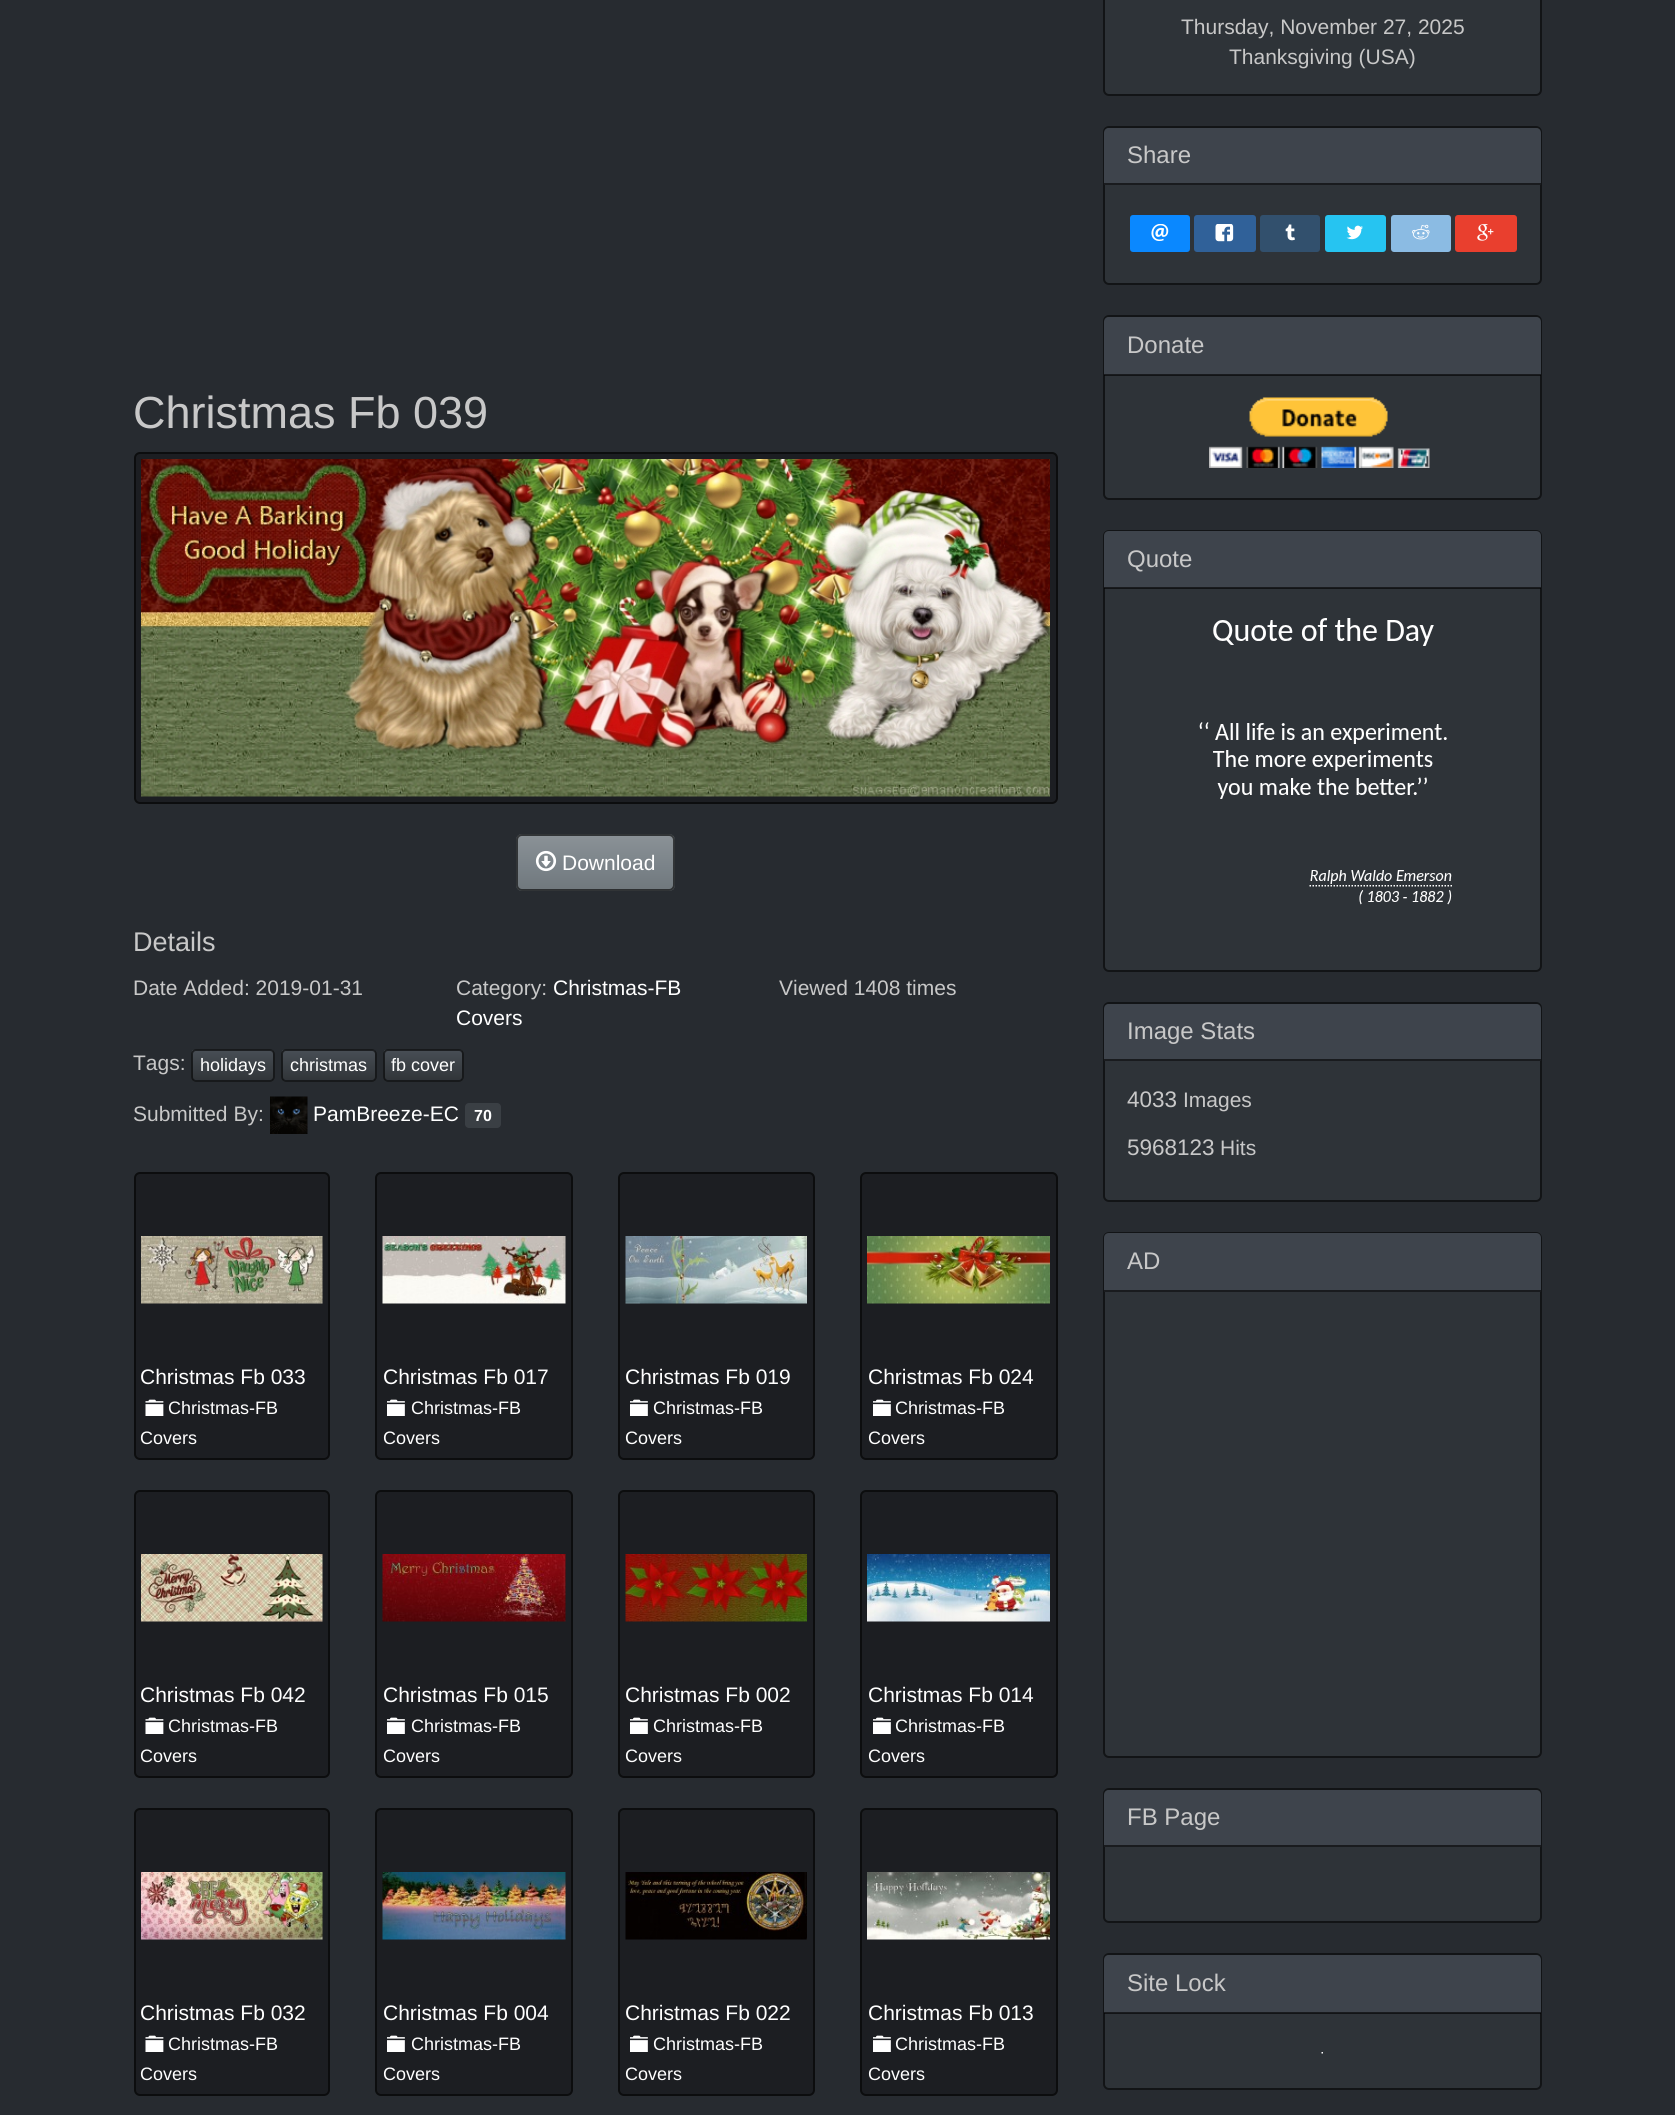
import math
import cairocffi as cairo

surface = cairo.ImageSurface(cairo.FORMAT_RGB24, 1675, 2115)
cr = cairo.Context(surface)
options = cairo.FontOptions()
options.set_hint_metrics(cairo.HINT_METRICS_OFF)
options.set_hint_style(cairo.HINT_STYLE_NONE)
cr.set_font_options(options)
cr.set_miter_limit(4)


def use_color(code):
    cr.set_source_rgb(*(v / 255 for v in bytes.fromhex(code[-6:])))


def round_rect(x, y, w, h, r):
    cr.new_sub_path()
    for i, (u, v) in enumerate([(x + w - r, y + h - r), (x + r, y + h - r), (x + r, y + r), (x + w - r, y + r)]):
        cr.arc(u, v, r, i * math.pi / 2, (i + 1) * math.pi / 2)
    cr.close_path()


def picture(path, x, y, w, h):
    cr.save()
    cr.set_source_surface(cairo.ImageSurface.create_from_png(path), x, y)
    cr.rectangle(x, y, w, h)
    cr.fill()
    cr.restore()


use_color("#272b30")
cr.paint()
cr.select_font_face("Liberation Sans")
cr.set_font_size(45)
use_color("#c8c8c8")
cr.move_to(133, 428)
cr.show_text("Christmas Fb 039")
use_color("#1c1e22")
round_rect(135, 453, 922, 350, 5)
cr.fill_preserve()
use_color("#0c0d0e")
cr.stroke()
picture("img1.png", 141, 459, 909, 338)
use_color("#7a8288")
round_rect(516, 834, 159, 57, 6)
cr.fill()
cr.save()
round_rect(516, 834, 159, 57, 6)
cr.clip()
gradient = cairo.LinearGradient(596, 836, 596, 890)
gradient.add_color_stop_rgba(0, 0.541, 0.569, 0.588, 1)
gradient.add_color_stop_rgba(0.6, 0.478, 0.51, 0.533, 1)
gradient.add_color_stop_rgba(1, 0.439, 0.471, 0.49, 1)
cr.set_source(gradient)
cr.rectangle(518, 836, 156, 54)
cr.fill()
cr.restore()
round_rect(517, 835, 157, 55, 5)
cr.set_source_rgba(0, 0, 0, 0.6)
cr.stroke()
picture("img2.png", 535, 850, 22, 22)
cr.set_font_size(21)
use_color("#ffffff")
cr.move_to(562, 870)
cr.show_text("Download")
cr.set_font_size(27)
use_color("#c8c8c8")
cr.move_to(133, 951)
cr.show_text("Details")
cr.set_font_size(21)
cr.move_to(133, 995)
cr.show_text("Date Added: 2019-01-31")
cr.move_to(456, 995)
cr.show_text("Category:")
use_color("#ffffff")
cr.move_to(553, 995)
cr.show_text("Christmas-FB")
cr.move_to(456, 1025)
cr.show_text("Covers")
use_color("#c8c8c8")
cr.move_to(779, 995)
cr.show_text("Viewed 1408 times")
cr.move_to(133, 1070)
cr.show_text("Tags:")
use_color("#3a3f44")
round_rect(191, 1049, 84, 33, 5)
cr.fill()
gradient = cairo.LinearGradient(233, 1050, 233, 1080)
gradient.add_color_stop_rgba(0, 0.282, 0.306, 0.333, 1)
gradient.add_color_stop_rgba(0.6, 0.227, 0.247, 0.267, 1)
gradient.add_color_stop_rgba(1, 0.192, 0.208, 0.224, 1)
cr.set_source(gradient)
cr.rectangle(192, 1050, 81, 30)
cr.fill()
round_rect(192, 1050, 82, 31, 4)
cr.set_source_rgba(0, 0, 0, 0.6)
cr.stroke()
cr.set_font_size(18)
use_color("#ffffff")
cr.move_to(200, 1071)
cr.show_text("holidays")
use_color("#3a3f44")
round_rect(281, 1049, 96, 33, 5)
cr.fill()
gradient = cairo.LinearGradient(329, 1050, 329, 1080)
gradient.add_color_stop_rgba(0, 0.282, 0.306, 0.333, 1)
gradient.add_color_stop_rgba(0.6, 0.227, 0.247, 0.267, 1)
gradient.add_color_stop_rgba(1, 0.192, 0.208, 0.224, 1)
cr.set_source(gradient)
cr.rectangle(282, 1050, 93, 30)
cr.fill()
round_rect(282, 1050, 94, 31, 4)
cr.set_source_rgba(0, 0, 0, 0.6)
cr.stroke()
use_color("#ffffff")
cr.move_to(290, 1071)
cr.show_text("christmas")
use_color("#3a3f44")
round_rect(383, 1049, 81, 33, 5)
cr.fill()
gradient = cairo.LinearGradient(423, 1050, 423, 1080)
gradient.add_color_stop_rgba(0, 0.282, 0.306, 0.333, 1)
gradient.add_color_stop_rgba(0.6, 0.227, 0.247, 0.267, 1)
gradient.add_color_stop_rgba(1, 0.192, 0.208, 0.224, 1)
cr.set_source(gradient)
cr.rectangle(384, 1050, 78, 30)
cr.fill()
round_rect(384, 1050, 79, 31, 4)
cr.set_source_rgba(0, 0, 0, 0.6)
cr.stroke()
use_color("#ffffff")
cr.move_to(391, 1071)
cr.show_text("fb cover")
cr.set_font_size(21)
use_color("#c8c8c8")
cr.move_to(133, 1121)
cr.show_text("Submitted By:")
picture("img3.png", 270, 1096, 38, 38)
use_color("#ffffff")
cr.move_to(313, 1121)
cr.show_text("PamBreeze-EC")
use_color("#3a3f44")
round_rect(465, 1103, 36, 25, 4)
cr.fill()
cr.select_font_face("Liberation Sans", cairo.FONT_SLANT_NORMAL, cairo.FONT_WEIGHT_BOLD)
cr.set_font_size(16)
use_color("#ffffff")
cr.move_to(474, 1121)
cr.show_text("70")
use_color("#1c1e22")
round_rect(135, 1173, 194, 286, 5)
cr.fill_preserve()
use_color("#0c0d0e")
cr.stroke()
picture("img4.png", 141, 1236, 182, 68)
cr.select_font_face("Liberation Sans")
cr.set_font_size(21)
use_color("#ffffff")
cr.move_to(140, 1384)
cr.show_text("Christmas Fb 033")
picture("img5.png", 145, 1399, 19, 17)
cr.set_font_size(18)
cr.move_to(168, 1414)
cr.show_text("Christmas-FB")
cr.move_to(140, 1444)
cr.show_text("Covers")
use_color("#1c1e22")
round_rect(376, 1173, 196, 286, 5)
cr.fill_preserve()
use_color("#0c0d0e")
cr.stroke()
picture("img6.png", 382, 1236, 184, 68)
cr.set_font_size(21)
use_color("#ffffff")
cr.move_to(383, 1384)
cr.show_text("Christmas Fb 017")
picture("img7.png", 387, 1399, 18, 17)
cr.set_font_size(18)
cr.move_to(411, 1414)
cr.show_text("Christmas-FB")
cr.move_to(383, 1444)
cr.show_text("Covers")
use_color("#1c1e22")
round_rect(619, 1173, 195, 286, 5)
cr.fill_preserve()
use_color("#0c0d0e")
cr.stroke()
picture("img8.png", 625, 1236, 182, 68)
cr.set_font_size(21)
use_color("#ffffff")
cr.move_to(625, 1384)
cr.show_text("Christmas Fb 019")
picture("img7.png", 630, 1399, 18, 17)
cr.set_font_size(18)
cr.move_to(653, 1414)
cr.show_text("Christmas-FB")
cr.move_to(625, 1444)
cr.show_text("Covers")
use_color("#1c1e22")
round_rect(861, 1173, 196, 286, 5)
cr.fill_preserve()
use_color("#0c0d0e")
cr.stroke()
picture("img9.png", 867, 1236, 183, 68)
cr.set_font_size(21)
use_color("#ffffff")
cr.move_to(868, 1384)
cr.show_text("Christmas Fb 024")
picture("img7.png", 873, 1399, 18, 17)
cr.set_font_size(18)
cr.move_to(895, 1414)
cr.show_text("Christmas-FB")
cr.move_to(868, 1444)
cr.show_text("Covers")
use_color("#1c1e22")
round_rect(135, 1491, 194, 286, 5)
cr.fill_preserve()
use_color("#0c0d0e")
cr.stroke()
picture("img10.png", 141, 1554, 182, 68)
cr.set_font_size(21)
use_color("#ffffff")
cr.move_to(140, 1702)
cr.show_text("Christmas Fb 042")
picture("img5.png", 145, 1717, 19, 17)
cr.set_font_size(18)
cr.move_to(168, 1732)
cr.show_text("Christmas-FB")
cr.move_to(140, 1762)
cr.show_text("Covers")
use_color("#1c1e22")
round_rect(376, 1491, 196, 286, 5)
cr.fill_preserve()
use_color("#0c0d0e")
cr.stroke()
picture("img11.png", 382, 1554, 184, 68)
cr.set_font_size(21)
use_color("#ffffff")
cr.move_to(383, 1702)
cr.show_text("Christmas Fb 015")
picture("img7.png", 387, 1717, 18, 17)
cr.set_font_size(18)
cr.move_to(411, 1732)
cr.show_text("Christmas-FB")
cr.move_to(383, 1762)
cr.show_text("Covers")
use_color("#1c1e22")
round_rect(619, 1491, 195, 286, 5)
cr.fill_preserve()
use_color("#0c0d0e")
cr.stroke()
picture("img12.png", 625, 1554, 182, 68)
cr.set_font_size(21)
use_color("#ffffff")
cr.move_to(625, 1702)
cr.show_text("Christmas Fb 002")
picture("img7.png", 630, 1717, 18, 17)
cr.set_font_size(18)
cr.move_to(653, 1732)
cr.show_text("Christmas-FB")
cr.move_to(625, 1762)
cr.show_text("Covers")
use_color("#1c1e22")
round_rect(861, 1491, 196, 286, 5)
cr.fill_preserve()
use_color("#0c0d0e")
cr.stroke()
picture("img13.png", 867, 1554, 183, 68)
cr.set_font_size(21)
use_color("#ffffff")
cr.move_to(868, 1702)
cr.show_text("Christmas Fb 014")
picture("img7.png", 873, 1717, 18, 17)
cr.set_font_size(18)
cr.move_to(895, 1732)
cr.show_text("Christmas-FB")
cr.move_to(868, 1762)
cr.show_text("Covers")
use_color("#1c1e22")
round_rect(135, 1809, 194, 286, 5)
cr.fill_preserve()
use_color("#0c0d0e")
cr.stroke()
picture("img14.png", 141, 1872, 182, 68)
cr.set_font_size(21)
use_color("#ffffff")
cr.move_to(140, 2020)
cr.show_text("Christmas Fb 032")
picture("img5.png", 145, 2035, 19, 17)
cr.set_font_size(18)
cr.move_to(168, 2050)
cr.show_text("Christmas-FB")
cr.move_to(140, 2080)
cr.show_text("Covers")
use_color("#1c1e22")
round_rect(376, 1809, 196, 286, 5)
cr.fill_preserve()
use_color("#0c0d0e")
cr.stroke()
picture("img15.png", 382, 1872, 184, 68)
cr.set_font_size(21)
use_color("#ffffff")
cr.move_to(383, 2020)
cr.show_text("Christmas Fb 004")
picture("img7.png", 387, 2035, 18, 17)
cr.set_font_size(18)
cr.move_to(411, 2050)
cr.show_text("Christmas-FB")
cr.move_to(383, 2080)
cr.show_text("Covers")
use_color("#1c1e22")
round_rect(619, 1809, 195, 286, 5)
cr.fill_preserve()
use_color("#0c0d0e")
cr.stroke()
picture("img16.png", 625, 1872, 182, 68)
cr.set_font_size(21)
use_color("#ffffff")
cr.move_to(625, 2020)
cr.show_text("Christmas Fb 022")
picture("img7.png", 630, 2035, 18, 17)
cr.set_font_size(18)
cr.move_to(653, 2050)
cr.show_text("Christmas-FB")
cr.move_to(625, 2080)
cr.show_text("Covers")
use_color("#1c1e22")
round_rect(861, 1809, 196, 286, 5)
cr.fill_preserve()
use_color("#0c0d0e")
cr.stroke()
picture("img17.png", 867, 1872, 183, 68)
cr.set_font_size(21)
use_color("#ffffff")
cr.move_to(868, 2020)
cr.show_text("Christmas Fb 013")
picture("img7.png", 873, 2035, 18, 17)
cr.set_font_size(18)
cr.move_to(895, 2050)
cr.show_text("Christmas-FB")
cr.move_to(868, 2080)
cr.show_text("Covers")
use_color("#2e3338")
round_rect(1104, -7, 437, 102, 5)
cr.fill_preserve()
use_color("#121416")
cr.stroke()
cr.set_font_size(21)
use_color("#c8c8c8")
cr.move_to(1181, 34)
cr.show_text("Thursday, November 27, 2025")
cr.move_to(1229, 64)
cr.show_text("Thanksgiving (USA)")
use_color("#2e3338")
round_rect(1104, 127, 437, 157, 5)
cr.fill_preserve()
use_color("#121416")
cr.stroke()
use_color("#3e444c")
cr.new_path()
cr.move_to(1109, 128)
cr.line_to(1536, 128)
cr.curve_to(1539, 128, 1541, 130, 1541, 133)
cr.line_to(1541, 185)
cr.line_to(1104, 185)
cr.line_to(1104, 133)
cr.curve_to(1104, 130, 1106, 128, 1109, 128)
cr.close_path()
cr.fill()
use_color("#191b1e")
cr.rectangle(1104, 183, 437, 2)
cr.fill()
cr.set_font_size(24)
use_color("#c8c8c8")
cr.move_to(1127, 163)
cr.show_text("Share")
use_color("#0a88ff")
round_rect(1130, 215, 60, 37, 3)
cr.fill()
picture("img18.png", 1151, 224, 18, 17)
use_color("#306199")
round_rect(1194, 215, 62, 37, 3)
cr.fill()
picture("img19.png", 1215, 224, 19, 18)
use_color("#32506d")
round_rect(1260, 215, 60, 37, 3)
cr.fill()
picture("img20.png", 1285, 224, 10, 17)
use_color("#26c4f1")
round_rect(1325, 215, 61, 37, 3)
cr.fill()
picture("img21.png", 1346, 225, 17, 15)
use_color("#8bbbe3")
round_rect(1391, 215, 60, 37, 3)
cr.fill()
picture("img22.png", 1412, 224, 18, 16)
use_color("#e93f2e")
round_rect(1455, 215, 62, 37, 3)
cr.fill()
picture("img23.png", 1477, 224, 17, 17)
use_color("#2e3338")
round_rect(1104, 316, 437, 183, 5)
cr.fill_preserve()
use_color("#121416")
cr.stroke()
use_color("#3e444c")
cr.new_path()
cr.move_to(1109, 317)
cr.line_to(1536, 317)
cr.curve_to(1539, 317, 1541, 319, 1541, 322)
cr.line_to(1541, 375)
cr.line_to(1104, 375)
cr.line_to(1104, 322)
cr.curve_to(1104, 319, 1106, 317, 1109, 317)
cr.close_path()
cr.fill()
cr.set_source_rgba(0, 0, 0, 0.6)
cr.rectangle(1104, 374, 437, 2)
cr.fill()
use_color("#c8c8c8")
cr.move_to(1127, 353)
cr.show_text("Donate")
picture("img24.png", 1209, 397, 221, 71)
use_color("#2e3338")
round_rect(1104, 531, 437, 440, 5)
cr.fill_preserve()
use_color("#121416")
cr.stroke()
use_color("#3e444c")
cr.new_path()
cr.move_to(1109, 531)
cr.line_to(1536, 531)
cr.curve_to(1539, 531, 1541, 533, 1541, 536)
cr.line_to(1541, 588)
cr.line_to(1104, 588)
cr.line_to(1104, 536)
cr.curve_to(1104, 533, 1106, 531, 1109, 531)
cr.close_path()
cr.fill()
cr.set_source_rgba(0, 0, 0, 0.6)
cr.rectangle(1104, 587, 437, 2)
cr.fill()
use_color("#c8c8c8")
cr.move_to(1127, 567)
cr.show_text("Quote")
picture("img25.png", 1199, 618, 253, 287)
use_color("#2e3338")
round_rect(1104, 1003, 437, 198, 5)
cr.fill_preserve()
use_color("#121416")
cr.stroke()
use_color("#3e444c")
cr.new_path()
cr.move_to(1109, 1004)
cr.line_to(1536, 1004)
cr.curve_to(1539, 1004, 1541, 1006, 1541, 1009)
cr.line_to(1541, 1061)
cr.line_to(1104, 1061)
cr.line_to(1104, 1009)
cr.curve_to(1104, 1006, 1106, 1004, 1109, 1004)
cr.close_path()
cr.fill()
use_color("#191b1e")
cr.rectangle(1104, 1059, 437, 2)
cr.fill()
use_color("#c8c8c8")
cr.move_to(1127, 1039)
cr.show_text("Image Stats")
cr.set_font_size(22.5)
cr.move_to(1127, 1107)
cr.show_text("4033")
cr.set_font_size(21)
cr.move_to(1183, 1107)
cr.show_text("Images")
cr.set_font_size(22.5)
cr.move_to(1127, 1155)
cr.show_text("5968123")
cr.set_font_size(21)
cr.move_to(1220, 1155)
cr.show_text("Hits")
use_color("#2e3338")
round_rect(1104, 1233, 437, 524, 5)
cr.fill_preserve()
use_color("#121416")
cr.stroke()
use_color("#3e444c")
cr.new_path()
cr.move_to(1109, 1233)
cr.line_to(1536, 1233)
cr.curve_to(1539, 1233, 1541, 1235, 1541, 1238)
cr.line_to(1541, 1292)
cr.line_to(1104, 1292)
cr.line_to(1104, 1238)
cr.curve_to(1104, 1235, 1106, 1233, 1109, 1233)
cr.close_path()
cr.fill()
use_color("#191b1e")
cr.rectangle(1104, 1290, 437, 2)
cr.fill()
cr.set_font_size(24)
use_color("#c8c8c8")
cr.move_to(1127, 1269)
cr.show_text("AD")
use_color("#2e3338")
round_rect(1104, 1789, 437, 133, 5)
cr.fill_preserve()
use_color("#121416")
cr.stroke()
use_color("#3e444c")
cr.new_path()
cr.move_to(1109, 1790)
cr.line_to(1536, 1790)
cr.curve_to(1539, 1790, 1541, 1792, 1541, 1795)
cr.line_to(1541, 1847)
cr.line_to(1104, 1847)
cr.line_to(1104, 1795)
cr.curve_to(1104, 1792, 1106, 1790, 1109, 1790)
cr.close_path()
cr.fill()
use_color("#191b1e")
cr.rectangle(1104, 1845, 437, 2)
cr.fill()
use_color("#c8c8c8")
cr.move_to(1127, 1825)
cr.show_text("FB Page")
use_color("#2e3338")
round_rect(1104, 1954, 437, 135, 5)
cr.fill_preserve()
use_color("#121416")
cr.stroke()
use_color("#3e444c")
cr.new_path()
cr.move_to(1109, 1955)
cr.line_to(1536, 1955)
cr.curve_to(1539, 1955, 1541, 1957, 1541, 1960)
cr.line_to(1541, 2013)
cr.line_to(1104, 2013)
cr.line_to(1104, 1960)
cr.curve_to(1104, 1957, 1106, 1955, 1109, 1955)
cr.close_path()
cr.fill()
cr.set_source_rgba(0, 0, 0, 0.6)
cr.rectangle(1104, 2012, 437, 2)
cr.fill()
use_color("#c8c8c8")
cr.move_to(1127, 1991)
cr.show_text("Site Lock")
picture("img26.png", 1321, 2052, 2, 2)
surface.write_to_png("result.png")
